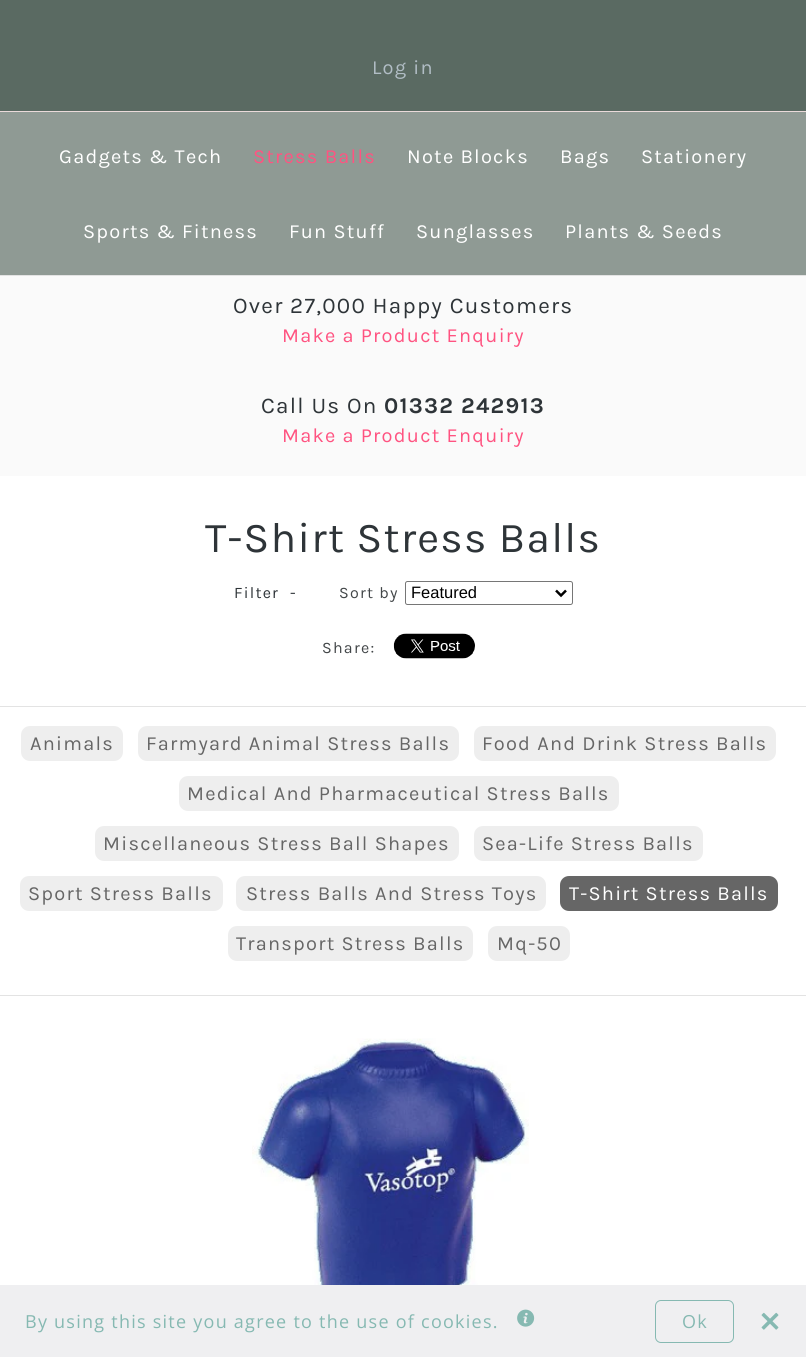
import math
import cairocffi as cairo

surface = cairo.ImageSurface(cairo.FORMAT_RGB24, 806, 1357)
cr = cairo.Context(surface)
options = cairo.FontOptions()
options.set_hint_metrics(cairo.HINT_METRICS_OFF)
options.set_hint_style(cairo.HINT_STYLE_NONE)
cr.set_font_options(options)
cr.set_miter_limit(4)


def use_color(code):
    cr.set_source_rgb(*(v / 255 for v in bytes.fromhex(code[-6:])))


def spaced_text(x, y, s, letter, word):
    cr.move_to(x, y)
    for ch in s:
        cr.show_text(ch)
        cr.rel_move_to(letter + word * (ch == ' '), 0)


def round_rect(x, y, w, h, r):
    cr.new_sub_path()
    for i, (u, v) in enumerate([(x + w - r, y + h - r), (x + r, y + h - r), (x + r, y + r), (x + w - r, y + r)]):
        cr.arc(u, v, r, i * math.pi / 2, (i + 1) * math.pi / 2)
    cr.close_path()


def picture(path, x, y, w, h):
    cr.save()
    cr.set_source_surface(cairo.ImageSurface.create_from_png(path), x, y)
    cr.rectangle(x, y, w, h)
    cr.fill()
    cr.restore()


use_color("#ffffff")
cr.paint()
use_color("#e3e3e3")
cr.rectangle(0, 275, 806, 1)
cr.fill()
use_color("#5a6a62")
cr.rectangle(0, 0, 806, 111)
cr.fill()
cr.select_font_face("Karla")
cr.set_font_size(20)
use_color("#b1bdc5")
spaced_text(372, 74, "Log in", 1.25, 0)
use_color("#8f9a94")
cr.rectangle(0, 112, 806, 163)
cr.fill()
use_color("#eadada")
cr.rectangle(0, 111, 806, 1)
cr.fill()
use_color("#ffffff")
spaced_text(59, 163, "Gadgets & Tech", 1.25, 0)
use_color("#ff5381")
spaced_text(253, 163, "Stress Balls", 1.25, 0)
use_color("#ffffff")
spaced_text(407, 163, "Note Blocks", 1.25, 0)
spaced_text(560, 163, "Bags", 1.25, 0)
spaced_text(641, 163, "Stationery", 1.25, 0)
spaced_text(83, 238, "Sports & Fitness", 1.25, 0)
spaced_text(289, 238, "Fun Stuff", 1.25, 0)
spaced_text(416, 238, "Sunglasses", 1.25, 0)
spaced_text(565, 238, "Plants & Seeds", 1.25, 0)
use_color("#fafafa")
cr.rectangle(0, 276, 806, 200)
cr.fill()
cr.set_font_size(22.5)
use_color("#2e3438")
spaced_text(233, 313, "Over 27,000 Happy Customers", 1.25, 0)
cr.set_font_size(20)
use_color("#ff5381")
spaced_text(282, 342, "Make a Product Enquiry", 1.25, 0)
cr.set_font_size(22.5)
use_color("#2e3438")
spaced_text(261, 413, "Call Us On", 1.25, 0)
cr.select_font_face("Karla", cairo.FONT_SLANT_NORMAL, cairo.FONT_WEIGHT_BOLD)
spaced_text(384, 413, "01332 242913", 1.25, 0)
cr.select_font_face("Karla")
cr.set_font_size(20)
use_color("#ff5381")
spaced_text(282, 442, "Make a Product Enquiry", 1.25, 0)
cr.set_font_size(42.5)
use_color("#2e3438")
spaced_text(205, 552, "T-Shirt Stress Balls", 1.25, 0)
cr.set_font_size(16)
spaced_text(234, 598, "Filter", 1.25, 0)
spaced_text(290, 598, "-", 1.25, 0)
use_color("#424648")
spaced_text(339, 598, "Sort by", 1.25, 0)
round_rect(405.5, 581.5, 167, 23, 2)
use_color("#767676")
cr.set_line_width(1)
cr.stroke()
cr.new_path()
cr.move_to(556, 590.5)
cr.line_to(561, 595.5)
cr.line_to(566, 590.5)
use_color("#000000")
cr.set_line_width(2.5)
cr.stroke()
cr.select_font_face("Liberation Sans")
cr.set_font_size(16.5)
cr.move_to(411, 598)
cr.show_text("Featured")
cr.select_font_face("Karla")
cr.set_font_size(16)
use_color("#424648")
spaced_text(322, 653, "Share:", 1.25, 0)
picture("img1.png", 393, 633, 82, 26)
use_color("#e3e3e3")
cr.rectangle(0, 706, 806, 1)
cr.fill()
cr.rectangle(0, 995, 806, 1)
cr.fill()
use_color("#eeeeee")
round_rect(21, 726, 102, 35, 9)
cr.fill()
cr.set_font_size(20)
use_color("#666666")
spaced_text(30, 750, "Animals", 1.25, 0)
use_color("#eeeeee")
round_rect(138, 726, 321, 35, 9)
cr.fill()
use_color("#666666")
spaced_text(146, 750, "Farmyard Animal Stress Balls", 1.25, 0)
use_color("#eeeeee")
round_rect(474, 726, 302, 35, 9)
cr.fill()
use_color("#666666")
spaced_text(482, 750, "Food And Drink Stress Balls", 1.25, 0)
use_color("#eeeeee")
round_rect(179, 776, 440, 35, 9)
cr.fill()
use_color("#666666")
spaced_text(187, 800, "Medical And Pharmaceutical Stress Balls", 1.25, 0)
use_color("#eeeeee")
round_rect(95, 826, 364, 35, 9)
cr.fill()
use_color("#666666")
spaced_text(103, 850, "Miscellaneous Stress Ball Shapes", 1.25, 0)
use_color("#eeeeee")
round_rect(474, 826, 229, 35, 9)
cr.fill()
use_color("#666666")
spaced_text(482, 850, "Sea-Life Stress Balls", 1.25, 0)
use_color("#eeeeee")
round_rect(20, 876, 203, 35, 9)
cr.fill()
use_color("#666666")
spaced_text(28, 900, "Sport Stress Balls", 1.25, 0)
use_color("#eeeeee")
round_rect(236, 876, 310, 35, 9)
cr.fill()
use_color("#666666")
spaced_text(246, 900, "Stress Balls And Stress Toys", 1.25, 0)
round_rect(560, 876, 218, 35, 9)
cr.fill()
use_color("#ffffff")
spaced_text(569, 900, "T-Shirt Stress Balls", 1.25, 0)
use_color("#eeeeee")
round_rect(228, 926, 245, 35, 9)
cr.fill()
use_color("#666666")
spaced_text(236, 950, "Transport Stress Balls", 1.25, 0)
use_color("#eeeeee")
round_rect(488, 926, 82, 35, 9)
cr.fill()
use_color("#666666")
spaced_text(497, 950, "Mq-50", 1.25, 0)
picture("img2.png", 252, 1038, 277, 247)
use_color("#efeff1")
cr.rectangle(0, 1285, 806, 72)
cr.fill()
cr.select_font_face("Open Sans")
cr.set_font_size(18)
use_color("#86b9b2")
spaced_text(25, 1328, "By using this site you agree to the use of cookies.", 1.25, 0)
picture("img3.png", 517, 1309, 18, 18)
round_rect(655.5, 1300.5, 78, 42, 5.5)
cr.set_line_width(1)
cr.stroke()
spaced_text(682, 1328, "Ok", 1.25, 0)
picture("img4.png", 761, 1312, 18, 18)
surface.write_to_png("result.png")
